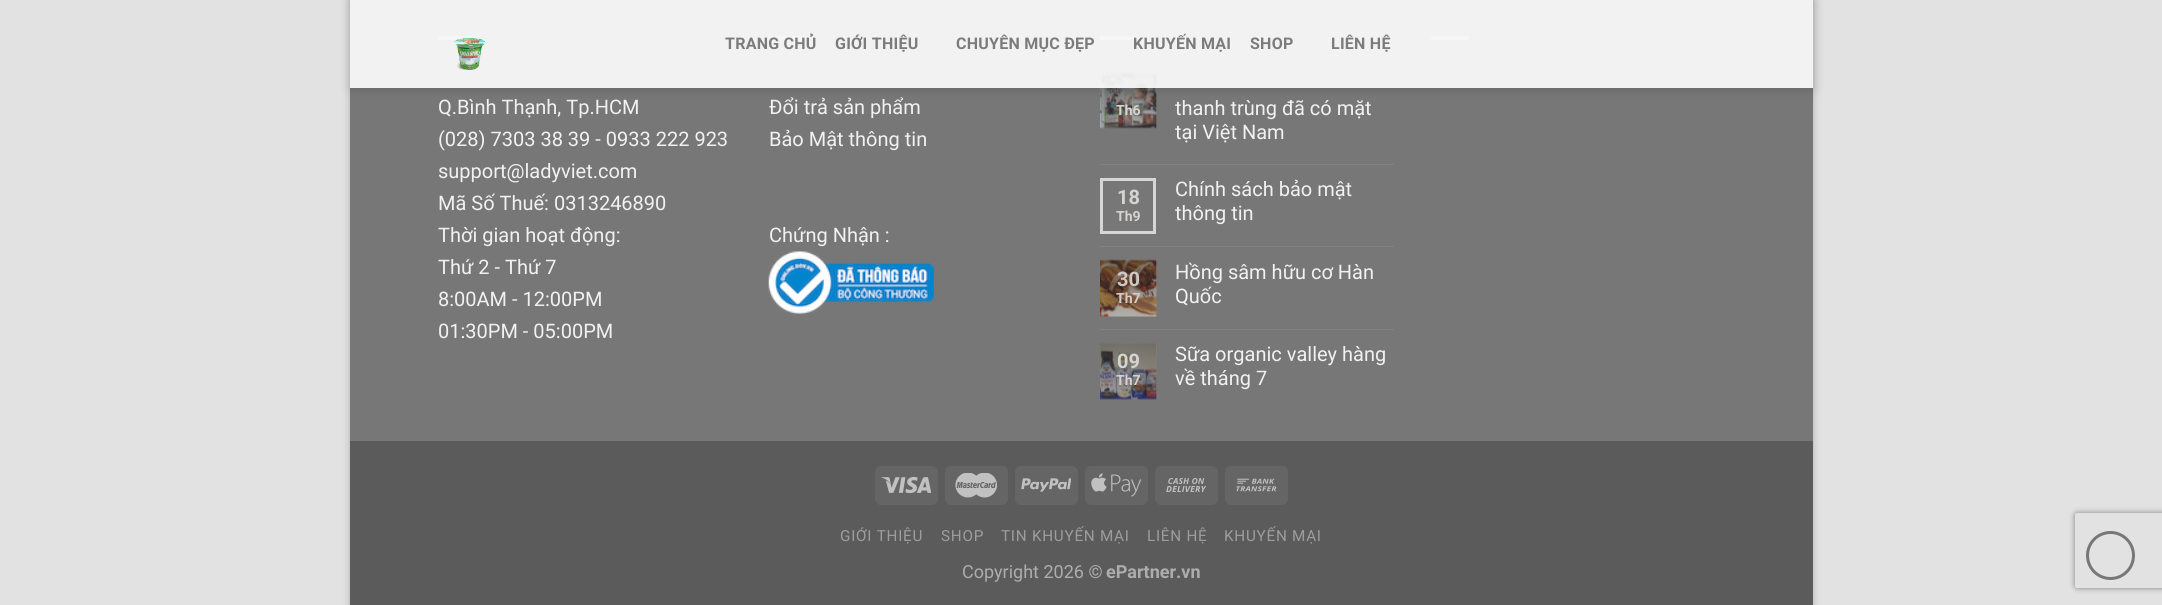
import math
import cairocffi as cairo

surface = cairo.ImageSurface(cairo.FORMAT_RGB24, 2162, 605)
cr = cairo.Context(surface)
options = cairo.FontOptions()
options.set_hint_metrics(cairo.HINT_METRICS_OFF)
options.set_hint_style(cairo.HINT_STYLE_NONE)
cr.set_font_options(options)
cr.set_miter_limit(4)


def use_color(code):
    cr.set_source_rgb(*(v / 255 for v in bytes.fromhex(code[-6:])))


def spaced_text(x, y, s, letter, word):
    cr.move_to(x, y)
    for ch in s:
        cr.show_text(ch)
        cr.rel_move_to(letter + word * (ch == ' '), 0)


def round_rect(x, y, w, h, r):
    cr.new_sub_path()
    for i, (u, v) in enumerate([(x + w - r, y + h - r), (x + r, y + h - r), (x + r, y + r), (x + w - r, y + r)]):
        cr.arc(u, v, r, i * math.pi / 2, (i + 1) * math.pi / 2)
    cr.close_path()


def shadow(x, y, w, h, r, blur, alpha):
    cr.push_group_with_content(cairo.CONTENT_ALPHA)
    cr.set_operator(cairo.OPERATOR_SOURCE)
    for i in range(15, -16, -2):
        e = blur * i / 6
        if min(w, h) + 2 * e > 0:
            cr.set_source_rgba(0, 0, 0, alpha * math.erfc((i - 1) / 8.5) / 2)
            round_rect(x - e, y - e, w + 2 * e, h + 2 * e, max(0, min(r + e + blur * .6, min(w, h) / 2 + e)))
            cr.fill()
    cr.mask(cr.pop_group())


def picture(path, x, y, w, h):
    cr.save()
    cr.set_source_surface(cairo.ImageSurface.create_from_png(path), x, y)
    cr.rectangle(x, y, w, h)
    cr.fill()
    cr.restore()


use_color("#e2e2e2")
cr.paint()
use_color("#000000")
shadow(350, -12, 1463, 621, 0, 4, 0.23)
use_color("#777777")
cr.rectangle(350, 0, 1463, 441)
cr.fill()
use_color("#a0a0a0")
cr.rectangle(1431, 36, 38, 4)
cr.fill()
cr.rectangle(438, 36, 37, 4)
cr.fill()
cr.rectangle(769, 36, 37, 4)
cr.fill()
cr.rectangle(1100, 36, 38, 4)
cr.fill()
picture("img3.png", 1100, 72, 57, 57)
cr.save()
cr.set_fill_rule(cairo.FILL_RULE_EVEN_ODD)
cr.new_path()
cr.move_to(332, 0)
cr.line_to(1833, 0)
cr.line_to(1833, 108)
cr.line_to(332, 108)
cr.close_path()
cr.move_to(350, 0)
cr.line_to(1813, 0)
cr.line_to(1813, 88)
cr.line_to(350, 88)
cr.close_path()
cr.clip()
use_color("#000000")
shadow(351, 1, 1463, 88, 0, 6, 0.15)
cr.restore()
cr.set_source_rgba(1, 1, 1, 0.9)
cr.rectangle(350, 0, 1463, 88)
cr.fill()
picture("img1.png", 454, 38, 32, 32)
cr.select_font_face("Roboto", cairo.FONT_SLANT_NORMAL, cairo.FONT_WEIGHT_BOLD)
cr.set_font_size(16)
use_color("#7b7b7b")
spaced_text(725, 49, "TRANG CHỦ", 0.25, 0)
spaced_text(835, 49, "GIỚI THIỆU", 0.25, 0)
spaced_text(956, 49, "CHUYÊN MỤC ĐẸP", 0.25, 0)
spaced_text(1133, 49, "KHUYẾN MẠI", 0.25, 0)
spaced_text(1250, 49, "SHOP", 0.25, 0)
spaced_text(1331, 49, "LIÊN HỆ", 0.25, 0)
cr.set_source_rgba(0.467, 0.467, 0.467, 0.1)
cr.rectangle(1107, 88, 48, 1)
cr.fill()
cr.select_font_face("Roboto")
cr.set_font_size(20)
use_color("#f1f1f1")
cr.move_to(438, 114)
cr.show_text("Q.Bình Thạnh, Tp.HCM")
cr.move_to(438, 146)
cr.show_text("(028) 7303 38 39 - 0933 222 923")
cr.move_to(438, 178)
cr.show_text("support@ladyviet.com")
cr.move_to(438, 210)
cr.show_text("Mã Số Thuế: 0313246890")
cr.move_to(438, 242)
cr.show_text("Thời gian hoạt động:")
cr.move_to(438, 274)
cr.show_text("Thứ 2 - Thứ 7")
cr.move_to(438, 306)
cr.show_text("8:00AM - 12:00PM")
cr.move_to(438, 338)
cr.show_text("01:30PM - 05:00PM")
cr.move_to(769, 114)
cr.show_text("Đổi trả sản phẩm")
cr.move_to(769, 146)
cr.show_text("Bảo Mật thông tin")
cr.move_to(769, 242)
cr.show_text("Chứng Nhận :")
picture("img2.png", 768, 251, 166, 63)
cr.select_font_face("Roboto", cairo.FONT_SLANT_NORMAL, cairo.FONT_WEIGHT_BOLD)
cr.set_font_size(14)
use_color("#d5d4d2")
cr.move_to(1116, 115)
cr.show_text("Th6")
cr.select_font_face("Roboto")
cr.set_font_size(20)
use_color("#f1f1f1")
cr.move_to(1175, 115)
cr.show_text("thanh trùng đã có mặt")
cr.move_to(1175, 139)
cr.show_text("tại Việt Nam")
use_color("#828282")
cr.rectangle(1100, 164, 294, 1)
cr.fill()
cr.rectangle(1101.5, 179.5, 53, 53)
use_color("#d6d6d6")
cr.set_line_width(3)
cr.stroke()
cr.select_font_face("Roboto", cairo.FONT_SLANT_NORMAL, cairo.FONT_WEIGHT_BOLD)
use_color("#d5d4d2")
cr.move_to(1117, 204)
cr.show_text("18")
cr.set_font_size(14)
cr.move_to(1116, 221)
cr.show_text("Th9")
cr.select_font_face("Roboto")
cr.set_font_size(20)
use_color("#f1f1f1")
cr.move_to(1175, 196)
cr.show_text("Chính sách bảo mật")
cr.move_to(1175, 220)
cr.show_text("thông tin")
use_color("#828282")
cr.rectangle(1100, 246, 294, 1)
cr.fill()
picture("img4.png", 1100, 259, 57, 58)
cr.select_font_face("Roboto", cairo.FONT_SLANT_NORMAL, cairo.FONT_WEIGHT_BOLD)
use_color("#cfc8c3")
cr.move_to(1117, 286)
cr.show_text("30")
cr.set_font_size(14)
use_color("#d7cec8")
cr.move_to(1116, 303)
cr.show_text("Th7")
cr.select_font_face("Roboto")
cr.set_font_size(20)
use_color("#f1f1f1")
cr.move_to(1175, 279)
cr.show_text("Hồng sâm hữu cơ Hàn")
cr.move_to(1175, 303)
cr.show_text("Quốc")
use_color("#828282")
cr.rectangle(1100, 329, 294, 1)
cr.fill()
picture("img5.png", 1100, 342, 57, 58)
cr.select_font_face("Roboto", cairo.FONT_SLANT_NORMAL, cairo.FONT_WEIGHT_BOLD)
use_color("#d5d4d2")
cr.move_to(1117, 368)
cr.show_text("09")
cr.set_font_size(14)
cr.move_to(1116, 385)
cr.show_text("Th7")
cr.select_font_face("Roboto")
cr.set_font_size(20)
use_color("#f1f1f1")
cr.move_to(1175, 361)
cr.show_text("Sữa organic valley hàng")
cr.move_to(1175, 385)
cr.show_text("về tháng 7")
use_color("#5b5b5b")
cr.rectangle(350, 441, 1463, 164)
cr.fill()
use_color("#656565")
round_rect(875, 466, 63, 39, 6)
cr.fill()
picture("img6.png", 881, 476, 50, 18)
round_rect(945, 466, 63, 39, 6)
cr.fill()
picture("img7.png", 955, 473, 42, 25)
round_rect(1015, 466, 63, 39, 6)
cr.fill()
picture("img8.png", 1021, 478, 50, 14)
round_rect(1085, 466, 63, 39, 6)
cr.fill()
picture("img9.png", 1091, 473, 50, 24)
round_rect(1155, 466, 63, 39, 6)
cr.fill()
picture("img10.png", 1166, 478, 41, 14)
round_rect(1225, 466, 63, 39, 6)
cr.fill()
picture("img11.png", 1236, 478, 41, 14)
cr.set_font_size(15.25)
use_color("#9d9d9d")
spaced_text(840, 541, "GIỚI THIỆU", 0.75, 0)
spaced_text(941, 541, "SHOP", 0.75, 0)
spaced_text(1001, 541, "TIN KHUYẾN MẠI", 0.75, 0)
spaced_text(1147, 541, "LIÊN HỆ", 0.75, 0)
spaced_text(1224, 541, "KHUYẾN MẠI", 0.75, 0)
cr.set_font_size(18)
use_color("#adadad")
cr.move_to(962, 578)
cr.show_text("Copyright 2026 ©")
cr.select_font_face("Roboto", cairo.FONT_SLANT_NORMAL, cairo.FONT_WEIGHT_BOLD)
cr.move_to(1106, 578)
cr.show_text("ePartner.vn")
cr.save()
cr.set_fill_rule(cairo.FILL_RULE_EVEN_ODD)
cr.new_path()
cr.move_to(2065, 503)
cr.line_to(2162, 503)
cr.line_to(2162, 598)
cr.line_to(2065, 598)
cr.close_path()
cr.move_to(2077.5, 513)
cr.line_to(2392.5, 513)
cr.curve_to(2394, 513, 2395, 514, 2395, 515.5)
cr.line_to(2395, 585.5)
cr.curve_to(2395, 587, 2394, 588, 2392.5, 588)
cr.line_to(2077.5, 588)
cr.curve_to(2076, 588, 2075, 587, 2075, 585.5)
cr.line_to(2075, 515.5)
cr.curve_to(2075, 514, 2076, 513, 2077.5, 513)
cr.close_path()
cr.clip()
use_color("#808080")
shadow(2075, 513, 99, 75, 2.5, 3, 1)
cr.restore()
cr.arc(2110.5, 555.5, 23, 0, 2 * math.pi)
use_color("#777777")
cr.stroke()
surface.write_to_png("result.png")
